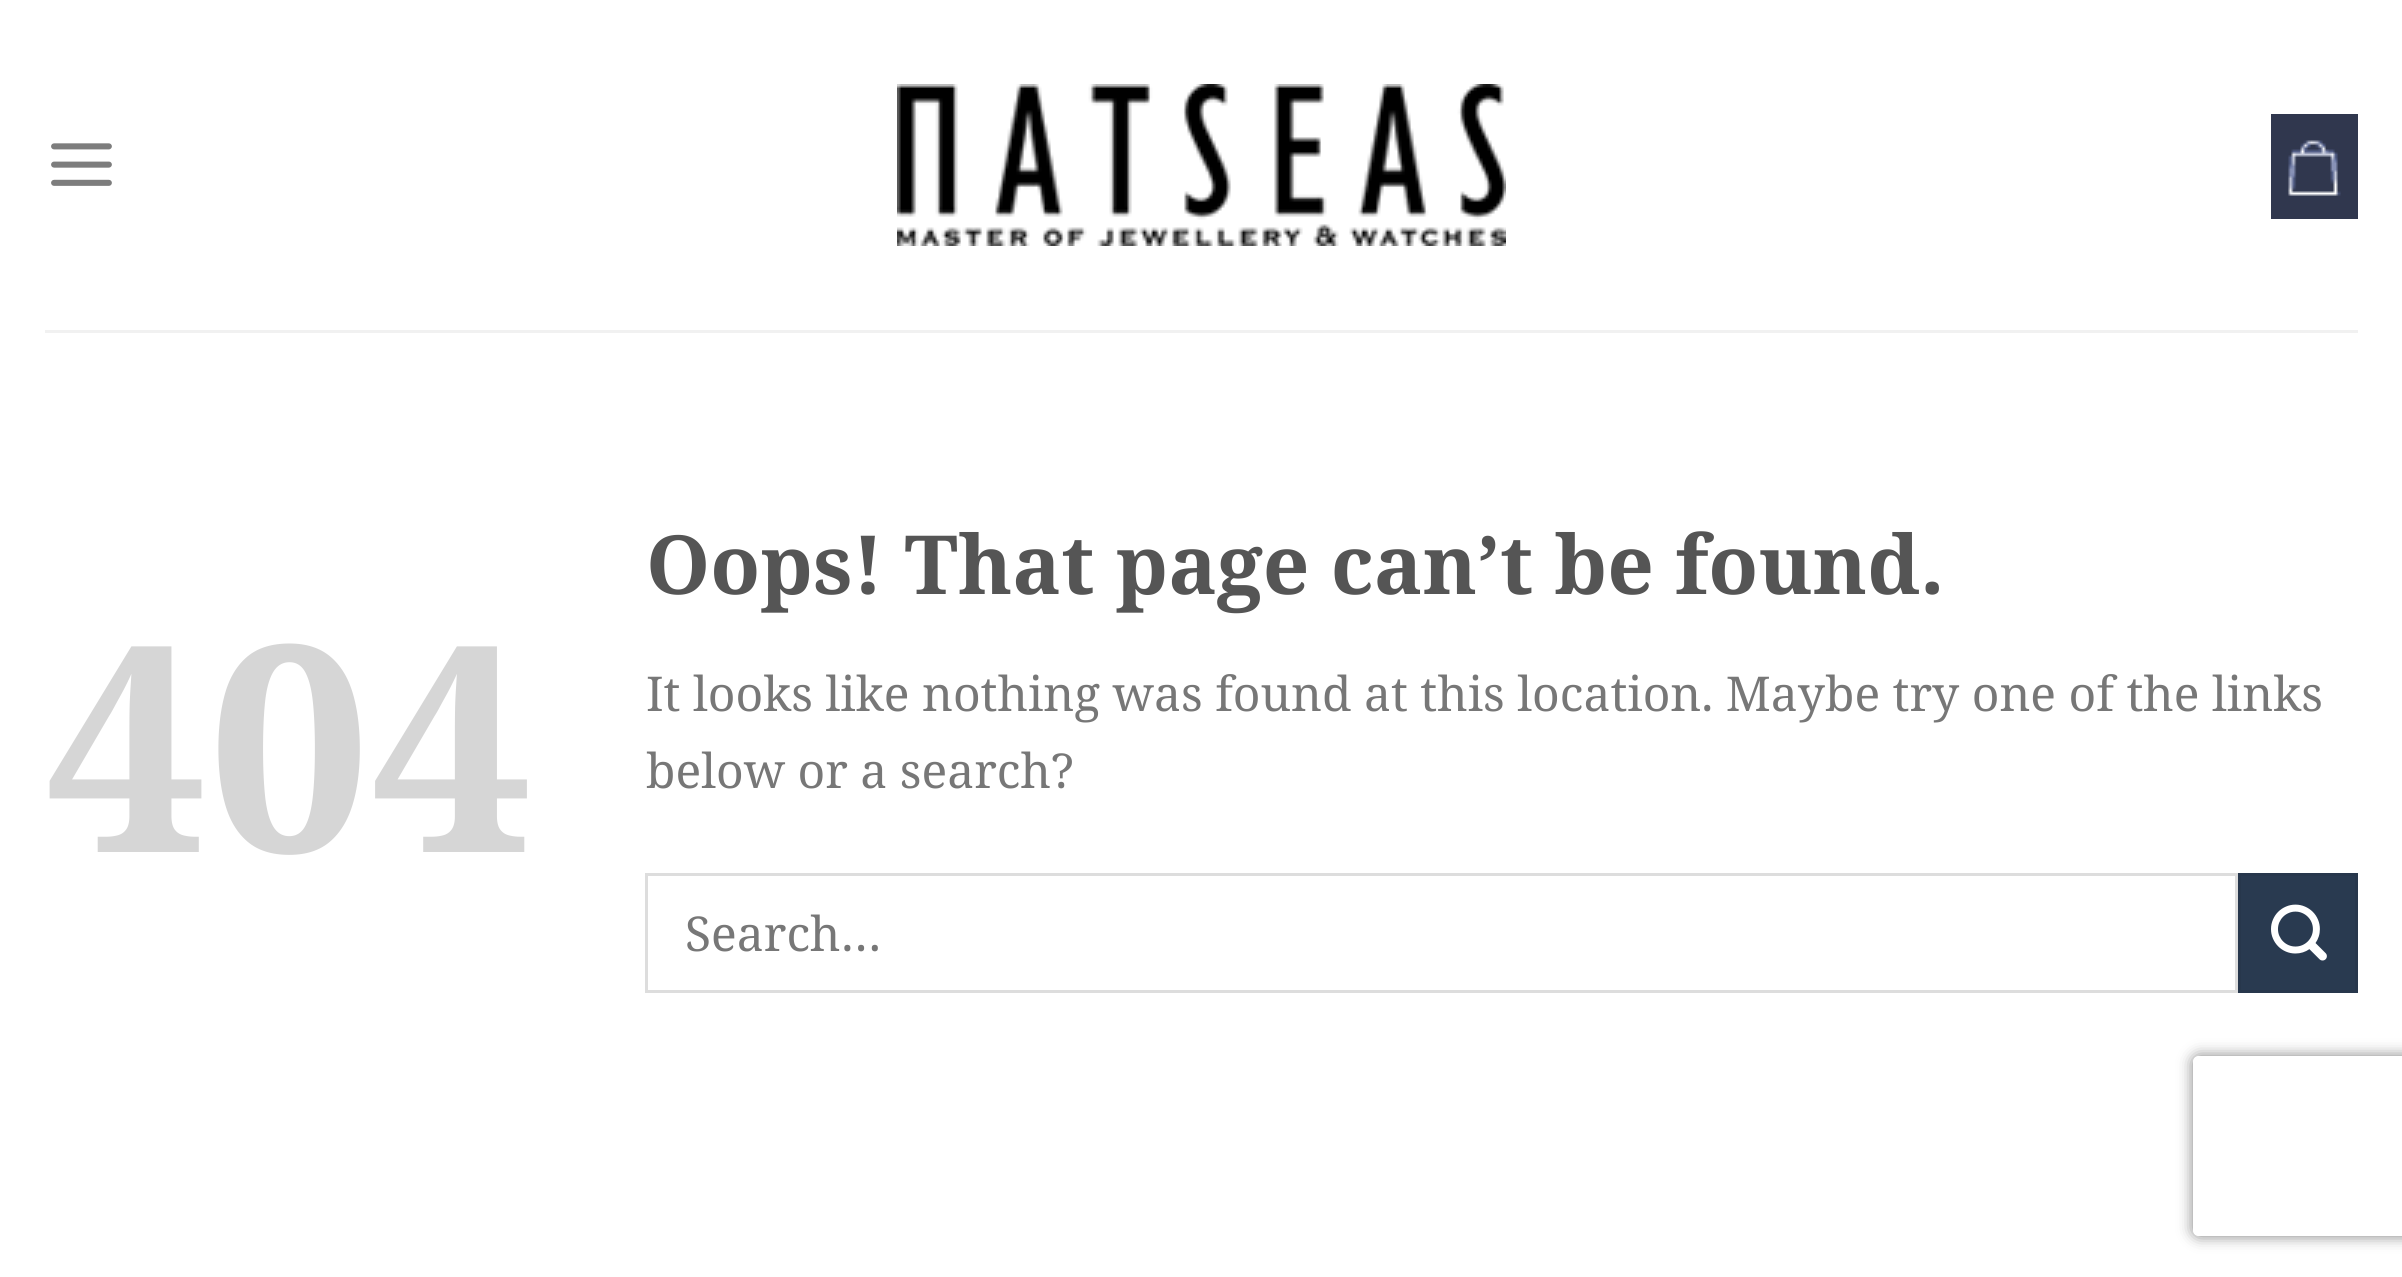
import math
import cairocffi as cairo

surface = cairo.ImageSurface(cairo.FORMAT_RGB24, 2402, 1277)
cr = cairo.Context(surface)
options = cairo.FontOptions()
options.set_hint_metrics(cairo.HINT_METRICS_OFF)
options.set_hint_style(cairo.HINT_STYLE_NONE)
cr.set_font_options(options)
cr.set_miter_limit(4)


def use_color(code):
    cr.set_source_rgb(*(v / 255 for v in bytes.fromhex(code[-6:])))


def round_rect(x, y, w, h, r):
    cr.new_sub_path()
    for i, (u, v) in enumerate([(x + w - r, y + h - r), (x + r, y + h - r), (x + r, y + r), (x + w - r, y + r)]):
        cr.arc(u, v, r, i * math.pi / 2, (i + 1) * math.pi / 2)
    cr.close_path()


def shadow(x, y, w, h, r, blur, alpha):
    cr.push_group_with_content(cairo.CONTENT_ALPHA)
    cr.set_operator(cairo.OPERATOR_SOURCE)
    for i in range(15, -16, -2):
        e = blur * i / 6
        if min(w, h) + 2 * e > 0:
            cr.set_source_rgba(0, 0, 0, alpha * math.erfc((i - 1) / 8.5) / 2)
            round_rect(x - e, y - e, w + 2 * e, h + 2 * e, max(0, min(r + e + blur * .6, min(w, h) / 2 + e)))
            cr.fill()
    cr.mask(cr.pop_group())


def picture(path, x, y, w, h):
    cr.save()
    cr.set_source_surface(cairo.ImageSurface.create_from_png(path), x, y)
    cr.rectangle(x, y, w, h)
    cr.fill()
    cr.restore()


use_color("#ffffff")
cr.paint()
picture("img1.png", 51, 143, 61, 43)
picture("img2.png", 897, 84, 609, 162)
picture("img3.png", 2271, 114, 87, 105)
use_color("#f1f1f1")
cr.rectangle(45, 330, 2313, 3)
cr.fill()
cr.select_font_face("Noto Serif", cairo.FONT_SLANT_NORMAL, cairo.FONT_WEIGHT_BOLD)
cr.set_font_size(288)
use_color("#d6d6d6")
cr.move_to(45, 852)
cr.show_text("404")
cr.set_font_size(81.6)
use_color("#555555")
cr.move_to(646, 594)
cr.show_text("Oops! That page can’t be found.")
cr.select_font_face("Noto Serif")
cr.set_font_size(48)
use_color("#777777")
cr.move_to(646, 711)
cr.show_text("It looks like nothing was found at this location. Maybe try one of the links")
cr.move_to(646, 788)
cr.show_text("below or a search?")
cr.rectangle(646.5, 874.5, 1590, 117)
use_color("#dddddd")
cr.set_line_width(3)
cr.stroke()
use_color("#777777")
cr.move_to(685, 951)
cr.show_text("Search…")
use_color("#293a50")
cr.rectangle(2239.5, 874.5, 117, 117)
cr.fill_preserve()
use_color("#27374c")
cr.stroke()
picture("img4.png", 2271, 904, 56, 57)
cr.save()
cr.set_fill_rule(cairo.FILL_RULE_EVEN_ODD)
cr.new_path()
cr.move_to(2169, 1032)
cr.line_to(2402, 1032)
cr.line_to(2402, 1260)
cr.line_to(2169, 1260)
cr.close_path()
cr.move_to(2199, 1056)
cr.line_to(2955, 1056)
cr.curve_to(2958.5, 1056, 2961, 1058.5, 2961, 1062)
cr.line_to(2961, 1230)
cr.curve_to(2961, 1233.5, 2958.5, 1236, 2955, 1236)
cr.line_to(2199, 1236)
cr.curve_to(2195.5, 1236, 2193, 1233.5, 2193, 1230)
cr.line_to(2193, 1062)
cr.curve_to(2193, 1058.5, 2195.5, 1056, 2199, 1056)
cr.close_path()
cr.clip()
use_color("#808080")
shadow(2193, 1056, 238, 180, 6, 7.5, 1)
cr.restore()
surface.write_to_png("result.png")
